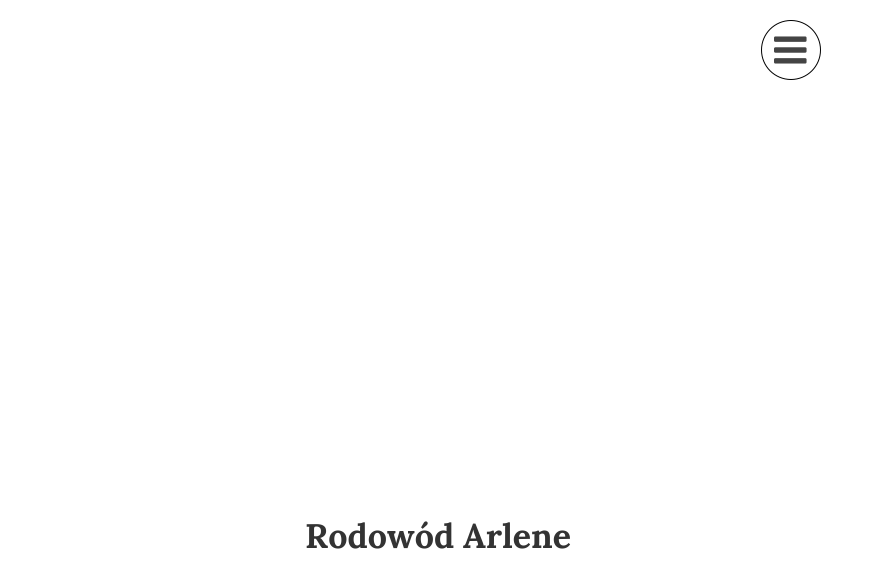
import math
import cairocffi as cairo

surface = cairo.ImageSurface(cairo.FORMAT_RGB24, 893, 561)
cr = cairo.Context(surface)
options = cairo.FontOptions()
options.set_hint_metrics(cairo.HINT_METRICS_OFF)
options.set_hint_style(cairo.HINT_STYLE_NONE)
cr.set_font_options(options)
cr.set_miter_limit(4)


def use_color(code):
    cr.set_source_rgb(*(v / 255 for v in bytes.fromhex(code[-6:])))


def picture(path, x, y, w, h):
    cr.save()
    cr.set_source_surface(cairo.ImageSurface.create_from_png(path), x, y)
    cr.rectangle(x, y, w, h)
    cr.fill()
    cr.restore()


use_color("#ffffff")
cr.paint()
cr.arc(791, 50, 29.5, 0, 2 * math.pi)
use_color("#000000")
cr.set_line_width(1)
cr.stroke()
picture("img1.png", 774, 36, 33, 28)
cr.select_font_face("Lora", cairo.FONT_SLANT_NORMAL, cairo.FONT_WEIGHT_BOLD)
cr.set_font_size(34)
use_color("#333333")
cr.move_to(305, 548)
cr.show_text("Rodowód Arlene")
surface.write_to_png("result.png")
